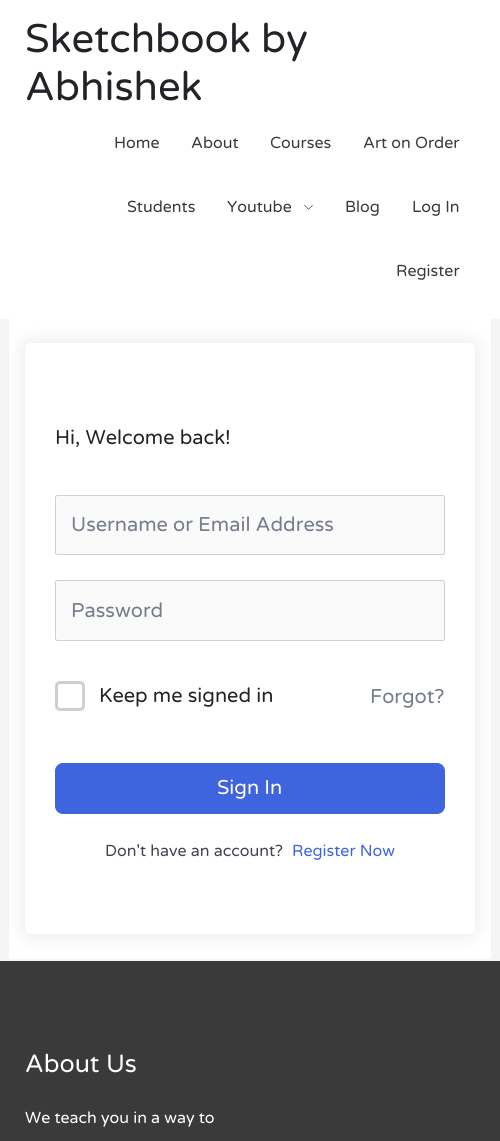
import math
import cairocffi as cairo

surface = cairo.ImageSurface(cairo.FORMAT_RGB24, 500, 1141)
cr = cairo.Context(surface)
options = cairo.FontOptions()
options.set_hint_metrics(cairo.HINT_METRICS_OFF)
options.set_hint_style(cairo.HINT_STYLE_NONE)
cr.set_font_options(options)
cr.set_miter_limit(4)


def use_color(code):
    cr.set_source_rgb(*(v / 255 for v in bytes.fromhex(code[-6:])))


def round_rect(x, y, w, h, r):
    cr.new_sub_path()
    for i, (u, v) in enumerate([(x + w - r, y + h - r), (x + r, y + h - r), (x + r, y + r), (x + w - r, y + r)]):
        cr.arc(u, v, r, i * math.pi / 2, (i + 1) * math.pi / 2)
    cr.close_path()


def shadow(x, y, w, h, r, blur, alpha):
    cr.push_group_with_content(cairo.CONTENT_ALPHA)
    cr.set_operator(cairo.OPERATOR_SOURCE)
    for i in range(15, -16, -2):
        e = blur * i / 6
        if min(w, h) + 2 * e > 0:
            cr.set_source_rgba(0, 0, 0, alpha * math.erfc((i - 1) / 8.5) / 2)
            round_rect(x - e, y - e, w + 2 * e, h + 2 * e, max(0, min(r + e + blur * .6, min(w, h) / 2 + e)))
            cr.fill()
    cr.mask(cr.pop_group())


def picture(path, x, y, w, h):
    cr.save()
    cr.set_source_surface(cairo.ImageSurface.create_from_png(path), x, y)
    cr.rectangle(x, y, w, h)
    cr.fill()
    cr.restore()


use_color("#f5f5f5")
cr.paint()
use_color("#ffffff")
cr.rectangle(9, 319, 482, 640)
cr.fill()
cr.save()
cr.set_fill_rule(cairo.FILL_RULE_EVEN_ODD)
cr.new_path()
cr.move_to(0, 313)
cr.line_to(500, 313)
cr.line_to(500, 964)
cr.line_to(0, 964)
cr.close_path()
cr.move_to(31, 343)
cr.line_to(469, 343)
cr.curve_to(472.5, 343, 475, 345.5, 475, 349)
cr.line_to(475, 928)
cr.curve_to(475, 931.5, 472.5, 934, 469, 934)
cr.line_to(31, 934)
cr.curve_to(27.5, 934, 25, 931.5, 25, 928)
cr.line_to(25, 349)
cr.curve_to(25, 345.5, 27.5, 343, 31, 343)
cr.close_path()
cr.clip()
use_color("#000000")
shadow(25, 343, 450, 591, 6, 9.5, 0.1)
cr.restore()
cr.rectangle(0, 0, 500, 319)
cr.fill()
cr.select_font_face("Varela Round")
cr.set_font_size(40)
use_color("#212327")
cr.move_to(25, 52)
cr.show_text("Sketchbook by")
cr.move_to(25, 100)
cr.show_text("Abhishek")
cr.set_font_size(16)
use_color("#3a3a3a")
cr.move_to(114, 148)
cr.show_text("Home")
cr.move_to(191, 148)
cr.show_text("About")
cr.move_to(270, 148)
cr.show_text("Courses")
cr.move_to(363, 148)
cr.show_text("Art on Order")
cr.move_to(127, 212)
cr.show_text("Students")
cr.move_to(227, 212)
cr.show_text("Youtube")
picture("img1.png", 304, 205, 9, 5)
cr.move_to(345, 212)
cr.show_text("Blog")
cr.move_to(412, 212)
cr.show_text("Log In")
cr.move_to(396, 276)
cr.show_text("Register")
cr.set_font_size(20)
use_color("#212327")
cr.move_to(55, 444)
cr.show_text("Hi, Welcome back!")
use_color("#fafafa")
round_rect(55.5, 495.5, 389, 59, 2)
cr.fill_preserve()
use_color("#cdcfd5")
cr.set_line_width(1)
cr.stroke()
use_color("#757c8e")
cr.move_to(71, 531)
cr.show_text("Username or Email Address")
use_color("#fafafa")
round_rect(55.5, 580.5, 389, 60, 2)
cr.fill_preserve()
use_color("#cdcfd5")
cr.stroke()
use_color("#757c8e")
cr.move_to(71, 617)
cr.show_text("Password")
round_rect(56.5, 682.5, 27, 27, 3.5)
use_color("#cdcfd5")
cr.set_line_width(3)
cr.stroke()
use_color("#212327")
cr.move_to(99, 702)
cr.show_text("Keep me signed in")
use_color("#757c8e")
cr.move_to(370, 703)
cr.show_text("Forgot?")
use_color("#3e64de")
round_rect(55.5, 763.5, 389, 50, 7.5)
cr.fill_preserve()
cr.set_line_width(1)
cr.stroke()
use_color("#ffffff")
cr.move_to(217, 794)
cr.show_text("Sign In")
cr.set_font_size(16)
use_color("#41454f")
cr.move_to(105, 856)
cr.show_text("Don't have an account?")
use_color("#3e64de")
cr.move_to(292, 856)
cr.show_text("Register Now")
use_color("#3a3a3a")
cr.rectangle(0, 961, 500, 180)
cr.fill()
cr.set_font_size(25)
use_color("#ffffff")
cr.move_to(25, 1072)
cr.show_text("About Us")
cr.set_font_size(16)
cr.move_to(25, 1123)
cr.show_text("We teach you in a way to")
surface.write_to_png("result.png")
